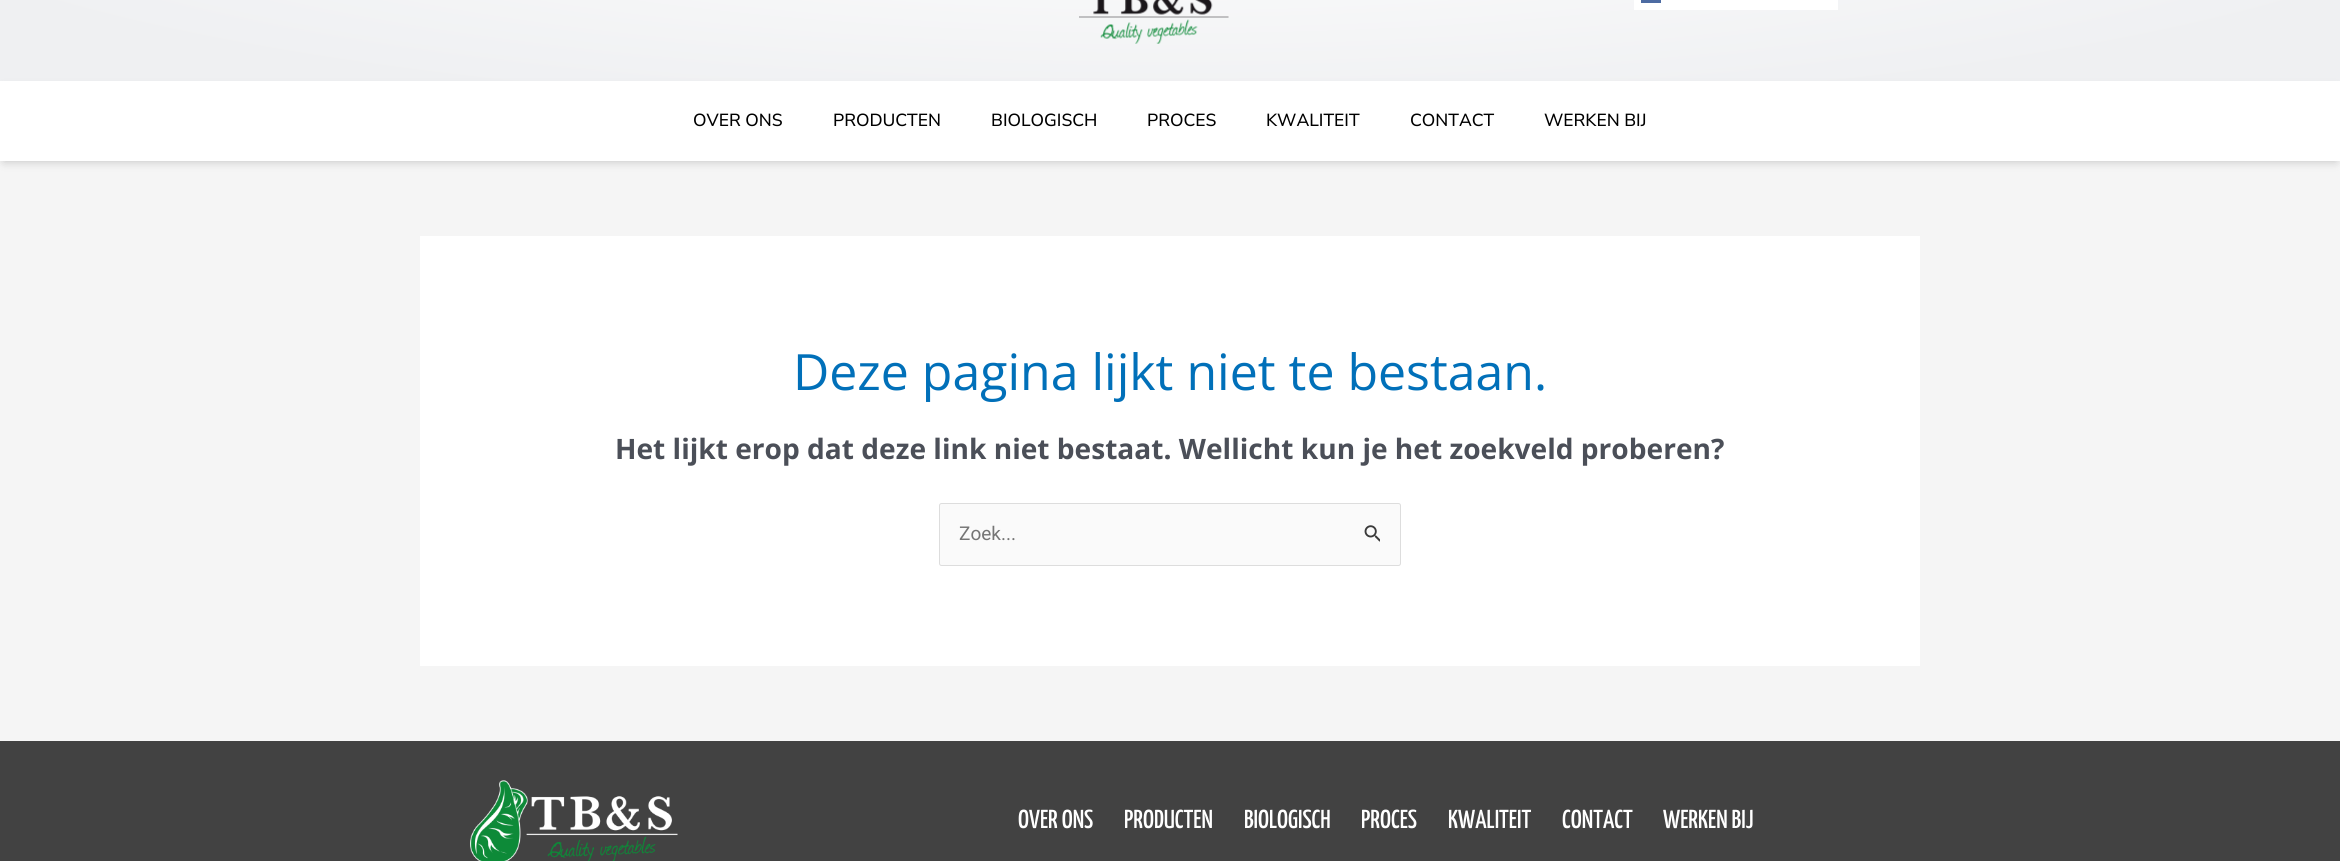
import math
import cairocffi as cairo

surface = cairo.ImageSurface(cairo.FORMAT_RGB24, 2340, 861)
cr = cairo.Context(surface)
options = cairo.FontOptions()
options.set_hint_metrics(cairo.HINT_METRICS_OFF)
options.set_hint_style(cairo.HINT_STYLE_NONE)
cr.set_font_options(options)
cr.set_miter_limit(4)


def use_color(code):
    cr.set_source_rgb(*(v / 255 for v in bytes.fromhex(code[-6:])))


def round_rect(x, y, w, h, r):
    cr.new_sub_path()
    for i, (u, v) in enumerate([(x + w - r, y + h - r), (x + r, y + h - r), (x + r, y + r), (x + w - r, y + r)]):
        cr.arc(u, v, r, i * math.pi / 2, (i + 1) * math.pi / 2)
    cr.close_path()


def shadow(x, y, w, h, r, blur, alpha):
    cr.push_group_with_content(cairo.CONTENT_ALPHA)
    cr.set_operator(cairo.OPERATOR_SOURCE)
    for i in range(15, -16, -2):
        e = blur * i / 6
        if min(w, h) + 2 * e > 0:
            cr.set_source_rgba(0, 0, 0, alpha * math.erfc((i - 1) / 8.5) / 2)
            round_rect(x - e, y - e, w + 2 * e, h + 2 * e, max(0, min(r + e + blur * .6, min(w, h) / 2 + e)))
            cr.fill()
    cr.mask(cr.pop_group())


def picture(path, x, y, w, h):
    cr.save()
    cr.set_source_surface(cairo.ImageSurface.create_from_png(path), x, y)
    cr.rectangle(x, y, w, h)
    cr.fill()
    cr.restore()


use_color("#f5f5f5")
cr.paint()
gradient = cairo.RadialGradient(0, 0, 0, 0, 0, 1)
gradient.set_matrix(cairo.Matrix(1 / 1655, 0, 0, 1 / 308, -1 * 1170 / 1655, -1 * -136 / 308))
gradient.add_color_stop_rgba(0, 1, 1, 1, 1)
gradient.add_color_stop_rgba(0.84, 0.937, 0.941, 0.949, 1)
cr.set_source(gradient)
cr.rectangle(0, 0, 2340, 81)
cr.fill()
picture("img1.png", 1079, 0, 150, 44)
use_color("#ffffff")
cr.rectangle(1634, 0, 204, 10)
cr.fill()
use_color("#4d6ba2")
cr.rectangle(1641, 0, 20, 3)
cr.fill()
use_color("#000000")
shadow(4, 89, 2332, 72, 0, 5, 0.23)
use_color("#ffffff")
cr.rectangle(0, 81, 2340, 80)
cr.fill()
cr.select_font_face("Nunito Sans Medium")
cr.set_font_size(17.5)
use_color("#000000")
cr.move_to(693, 126)
cr.show_text("OVER ONS")
cr.move_to(833, 126)
cr.show_text("PRODUCTEN")
cr.move_to(991, 126)
cr.show_text("BIOLOGISCH")
cr.move_to(1147, 126)
cr.show_text("PROCES")
cr.move_to(1266, 126)
cr.show_text("KWALITEIT")
cr.move_to(1410, 126)
cr.show_text("CONTACT")
cr.move_to(1544, 126)
cr.show_text("WERKEN BIJ")
use_color("#ffffff")
cr.rectangle(420, 236, 1500, 430)
cr.fill()
cr.select_font_face("Open Sans")
cr.set_font_size(50)
use_color("#0170b9")
cr.move_to(793, 390)
cr.show_text("Deze pagina lijkt niet te bestaan.")
cr.select_font_face("Open Sans", cairo.FONT_SLANT_NORMAL, cairo.FONT_WEIGHT_BOLD)
cr.set_font_size(28.1)
use_color("#4b4f58")
cr.move_to(615, 459)
cr.show_text("Het lijkt erop dat deze link niet bestaat. Wellicht kun je het zoekveld proberen?")
use_color("#fafafa")
round_rect(939.5, 503.5, 461, 62, 2)
cr.fill_preserve()
use_color("#dddddd")
cr.set_line_width(1)
cr.stroke()
cr.select_font_face("Roboto")
cr.set_font_size(19)
use_color("#757575")
cr.move_to(959, 540)
cr.show_text("Zoek...")
picture("img2.png", 1364, 525, 16, 17)
use_color("#424242")
cr.rectangle(0, 741, 2340, 120)
cr.fill()
picture("img3.png", 470, 780, 208, 81)
cr.select_font_face("Yanone Kaffeesatz Medium")
cr.set_font_size(26)
use_color("#ffffff")
cr.move_to(1018, 828)
cr.show_text("OVER ONS")
cr.move_to(1124, 828)
cr.show_text("PRODUCTEN")
cr.move_to(1244, 828)
cr.show_text("BIOLOGISCH")
cr.move_to(1361, 828)
cr.show_text("PROCES")
cr.move_to(1448, 828)
cr.show_text("KWALITEIT")
cr.move_to(1562, 828)
cr.show_text("CONTACT")
cr.move_to(1663, 828)
cr.show_text("WERKEN BIJ")
surface.write_to_png("result.png")
